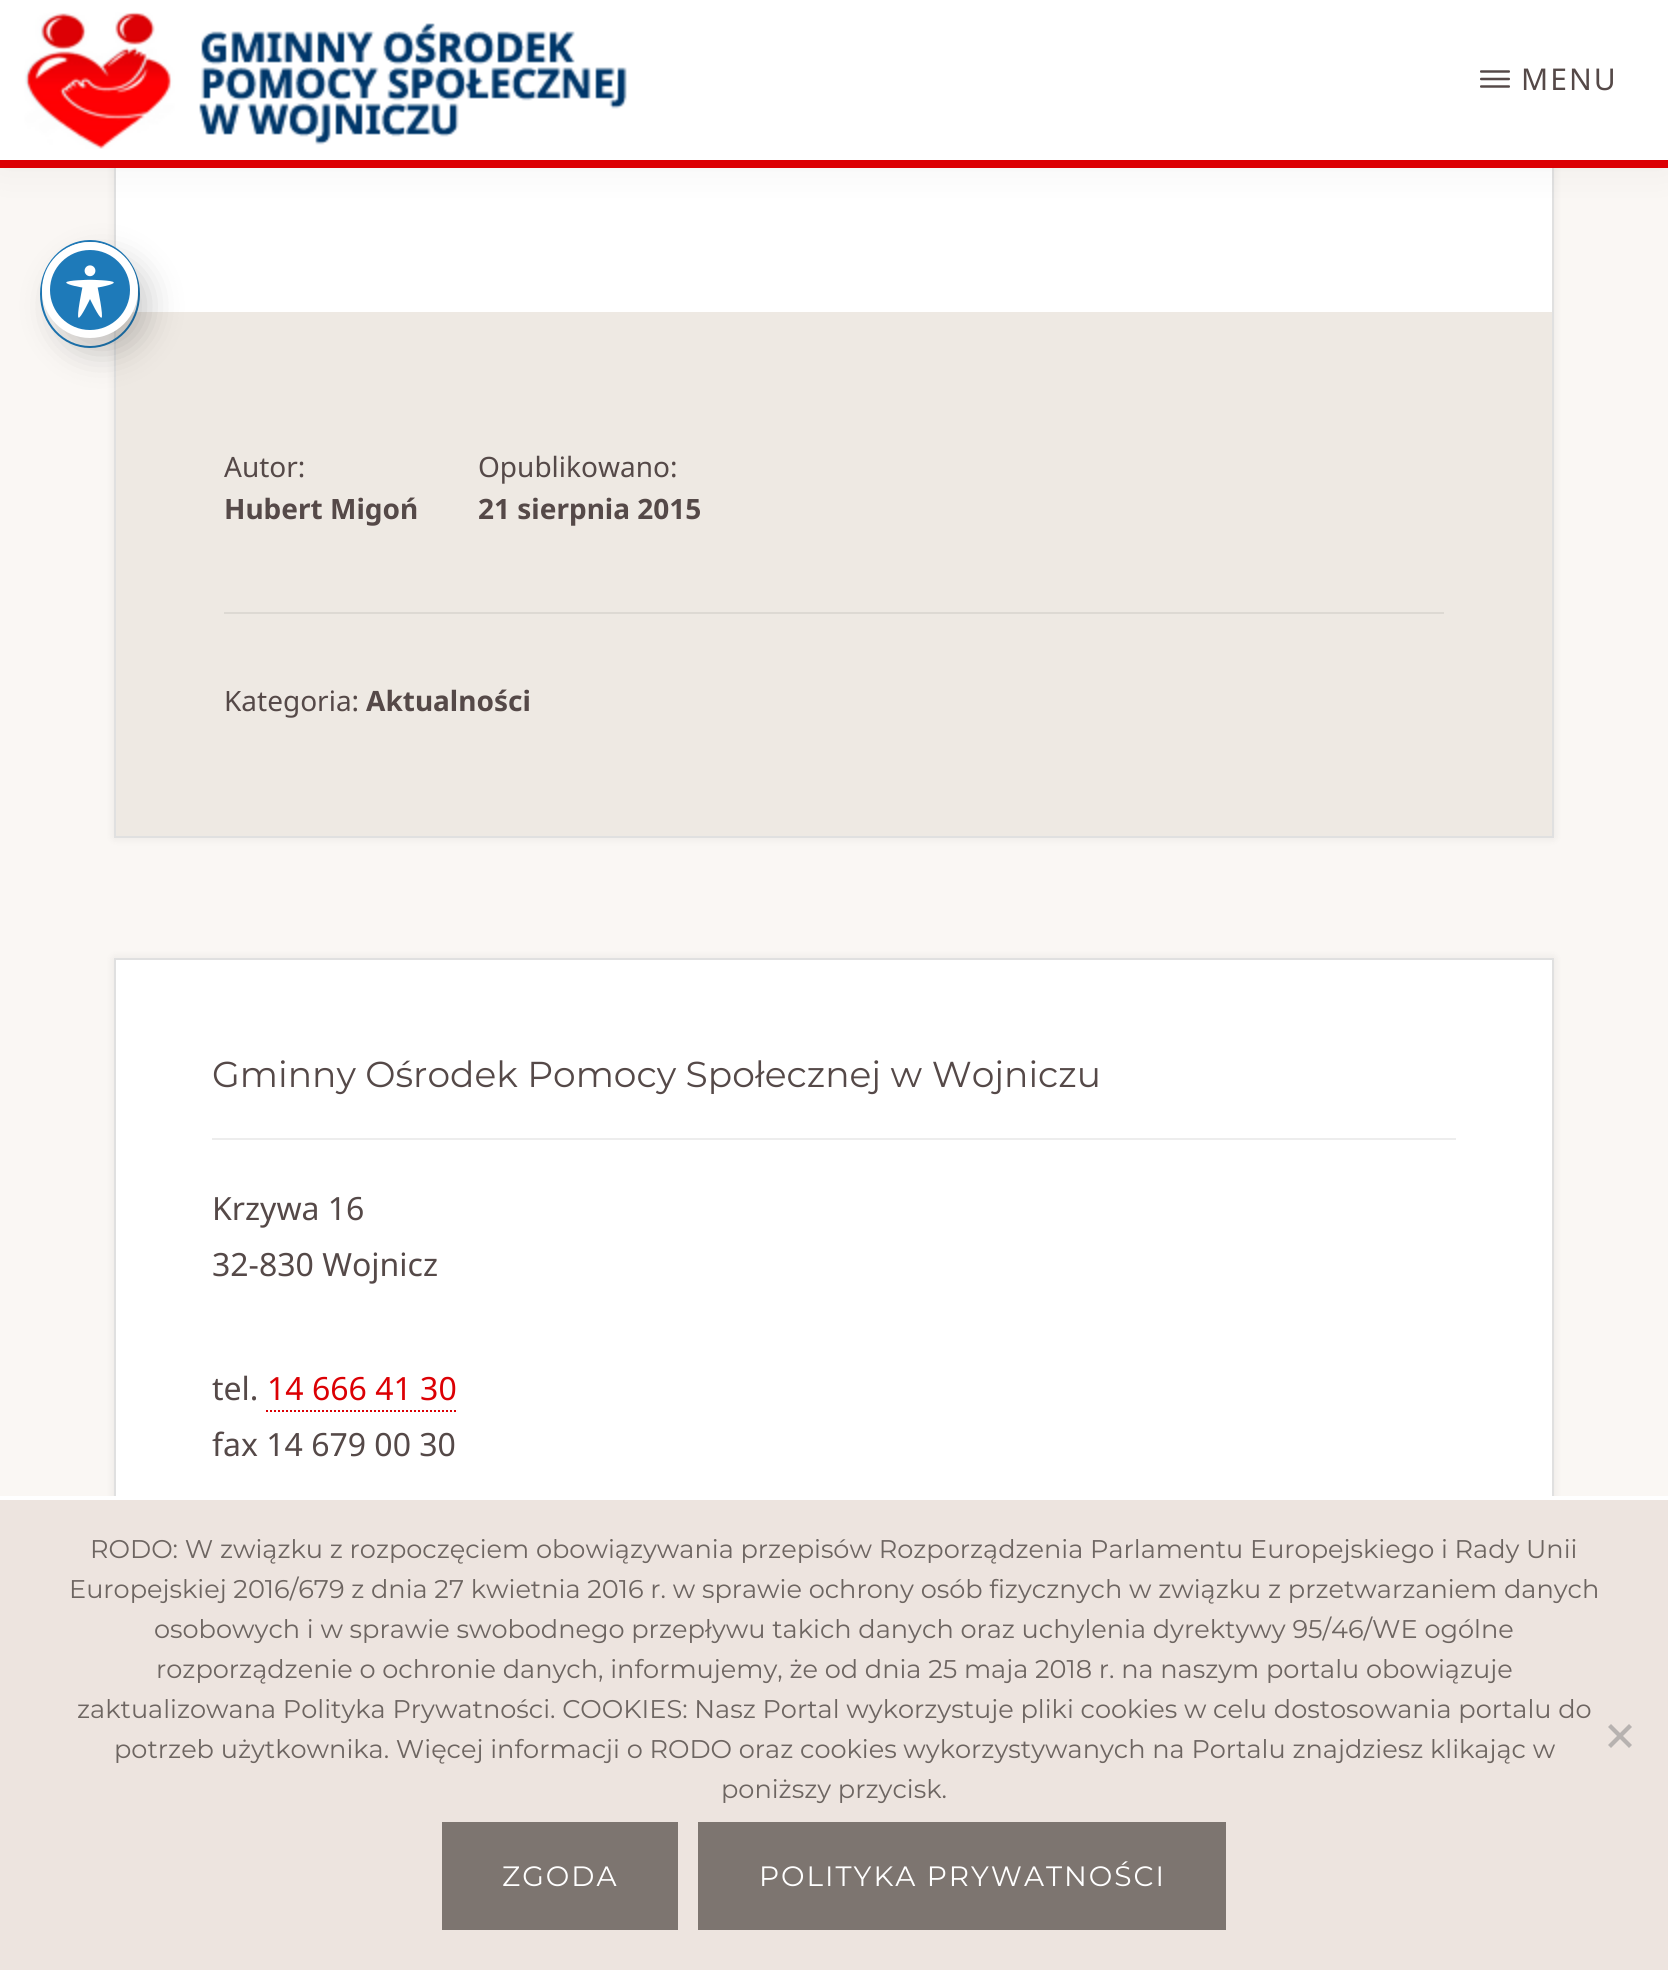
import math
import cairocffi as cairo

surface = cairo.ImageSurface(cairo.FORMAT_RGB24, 1668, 1970)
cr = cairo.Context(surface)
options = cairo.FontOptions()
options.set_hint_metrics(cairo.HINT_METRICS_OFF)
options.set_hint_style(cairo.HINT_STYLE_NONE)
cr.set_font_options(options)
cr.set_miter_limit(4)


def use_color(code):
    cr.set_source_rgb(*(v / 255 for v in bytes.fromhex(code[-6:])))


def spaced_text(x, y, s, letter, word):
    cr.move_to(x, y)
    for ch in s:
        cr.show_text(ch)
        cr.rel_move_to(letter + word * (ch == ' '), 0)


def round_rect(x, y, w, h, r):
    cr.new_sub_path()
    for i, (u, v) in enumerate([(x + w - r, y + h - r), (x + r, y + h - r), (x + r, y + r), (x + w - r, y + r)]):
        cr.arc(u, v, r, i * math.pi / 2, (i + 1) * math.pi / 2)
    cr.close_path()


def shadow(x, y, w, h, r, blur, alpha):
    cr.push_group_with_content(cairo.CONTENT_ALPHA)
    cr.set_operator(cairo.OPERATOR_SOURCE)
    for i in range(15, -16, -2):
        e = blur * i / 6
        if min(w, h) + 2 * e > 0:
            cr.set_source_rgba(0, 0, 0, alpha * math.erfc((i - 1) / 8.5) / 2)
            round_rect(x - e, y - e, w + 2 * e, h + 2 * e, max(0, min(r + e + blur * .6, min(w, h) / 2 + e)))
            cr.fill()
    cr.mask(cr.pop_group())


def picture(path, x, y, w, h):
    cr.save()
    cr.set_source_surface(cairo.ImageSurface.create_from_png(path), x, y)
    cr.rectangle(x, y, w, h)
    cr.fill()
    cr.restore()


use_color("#faf7f4")
cr.paint()
use_color("#000000")
shadow(114, -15, 1440, 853, 0, 5, 0.07)
use_color("#ffffff")
cr.rectangle(116, 168, 1436, 144)
cr.fill()
cr.rectangle(115, -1, 1438, 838)
use_color("#e0e0e0")
cr.stroke()
use_color("#eee9e3")
cr.rectangle(116, 312, 1436, 524)
cr.fill()
cr.new_path()
cr.move_to(90, 241)
cr.curve_to(117, 241, 139, 264.5, 139, 294)
cr.curve_to(139, 323.5, 117, 347, 90, 347)
cr.curve_to(63, 347, 41, 323.5, 41, 294)
cr.curve_to(41, 264.5, 63, 241, 90, 241)
cr.close_path()
use_color("#1e7ab9")
cr.stroke()
use_color("#000000")
shadow(54, 258, 96, 96, 48, 16, 0.2)
use_color("#1e7ab9")
cr.arc(90, 290, 44, 0, 2 * math.pi)
cr.fill_preserve()
use_color("#ffffff")
cr.set_line_width(8)
cr.stroke()
picture("img1.png", 66, 265, 48, 53)
use_color("#000000")
shadow(0, 0, 1668, 168, 0, 20, 0.05)
use_color("#ffffff")
cr.rectangle(0, 0, 1668, 160)
cr.fill()
use_color("#dc0004")
cr.rectangle(0, 160, 1668, 8)
cr.fill()
picture("img2.png", 24, 12, 603, 137)
picture("img3.png", 1480, 70, 30, 18)
cr.select_font_face("Noto Sans")
cr.set_font_size(30)
use_color("#554948")
spaced_text(1521, 90, "MENU", 2, 0)
cr.set_font_size(28)
cr.move_to(224, 477)
cr.show_text("Autor:")
cr.select_font_face("Noto Sans", cairo.FONT_SLANT_NORMAL, cairo.FONT_WEIGHT_BOLD)
cr.move_to(224, 519)
cr.show_text("Hubert Migoń")
cr.select_font_face("Noto Sans")
cr.move_to(478, 477)
cr.show_text("Opublikowano:")
cr.select_font_face("Noto Sans", cairo.FONT_SLANT_NORMAL, cairo.FONT_WEIGHT_BOLD)
cr.move_to(478, 519)
cr.show_text("21 sierpnia 2015")
use_color("#ddd9d3")
cr.rectangle(224, 612, 1220, 2)
cr.fill()
cr.select_font_face("Noto Sans")
use_color("#554948")
cr.move_to(224, 711)
cr.show_text("Kategoria:")
cr.select_font_face("Noto Sans", cairo.FONT_SLANT_NORMAL, cairo.FONT_WEIGHT_BOLD)
cr.move_to(366, 711)
cr.show_text("Aktualności")
use_color("#000000")
shadow(114, 958, 1440, 736, 0, 5, 0.07)
use_color("#ffffff")
cr.rectangle(116, 960, 1436, 536)
cr.fill()
cr.rectangle(115, 959, 1438, 734)
use_color("#e0e0e0")
cr.set_line_width(2)
cr.stroke()
use_color("#ededed")
cr.rectangle(212, 1138, 1244, 2)
cr.fill()
cr.select_font_face("Montserrat")
cr.set_font_size(36)
use_color("#554948")
cr.move_to(212, 1087)
cr.show_text("Gminny Ośrodek Pomocy Społecznej w Wojniczu")
cr.select_font_face("Noto Sans")
cr.set_font_size(32)
cr.move_to(212, 1220)
cr.show_text("Krzywa 16")
cr.move_to(212, 1276)
cr.show_text("32-830 Wojnicz")
cr.move_to(212, 1400)
cr.show_text("tel.")
use_color("#dc0004")
cr.move_to(267, 1400)
cr.show_text("14 666 41 30")
cr.new_path()
cr.move_to(266, 1411)
cr.line_to(456, 1411)
cr.set_dash([2, 2])
cr.stroke()
use_color("#554948")
cr.move_to(212, 1456)
cr.show_text("fax 14 679 00 30")
use_color("#ede4df")
cr.rectangle(0, 1500, 1668, 470)
cr.fill()
use_color("#ffffff")
cr.rectangle(0, 1496, 1668, 4)
cr.fill()
cr.select_font_face("Montserrat")
cr.set_font_size(25.6)
use_color("#6d6561")
cr.move_to(90, 1558)
cr.show_text("RODO: W związku z rozpoczęciem obowiązywania przepisów Rozporządzenia Parlamentu Europejskiego i Rady Unii")
cr.move_to(69, 1598)
cr.show_text("Europejskiej 2016/679 z dnia 27 kwietnia 2016 r. w sprawie ochrony osób fizycznych w związku z przetwarzaniem danych")
cr.move_to(154, 1638)
cr.show_text("osobowych i w sprawie swobodnego przepływu takich danych oraz uchylenia dyrektywy 95/46/WE ogólne")
cr.move_to(156, 1678)
cr.show_text("rozporządzenie o ochronie danych, informujemy, że od dnia 25 maja 2018 r. na naszym portalu obowiązuje")
cr.move_to(77, 1718)
cr.show_text("zaktualizowana Polityka Prywatności. COOKIES: Nasz Portal wykorzystuje pliki cookies w celu dostosowania portalu do")
cr.move_to(114, 1758)
cr.show_text("potrzeb użytkownika. Więcej informacji o RODO oraz cookies wykorzystywanych na Portalu znajdziesz klikając w")
cr.move_to(721, 1798)
cr.show_text("poniższy przycisk.")
use_color("#b7b2b0")
cr.new_path()
cr.move_to(1629, 1724)
cr.line_to(1632, 1727)
cr.line_to(1611, 1748)
cr.line_to(1608, 1745)
cr.close_path()
cr.fill()
cr.new_path()
cr.move_to(1608, 1727)
cr.line_to(1611, 1724)
cr.line_to(1632, 1745)
cr.line_to(1629, 1748)
cr.close_path()
cr.fill()
use_color("#7d7570")
cr.rectangle(442, 1822, 236, 108)
cr.fill()
cr.set_font_size(28)
use_color("#ffffff")
spaced_text(502, 1886, "ZGODA", 2, 0)
use_color("#7d7570")
cr.rectangle(698, 1822, 528, 108)
cr.fill()
use_color("#ffffff")
spaced_text(759, 1886, "POLITYKA PRYWATNOŚCI", 2, 0)
surface.write_to_png("result.png")
